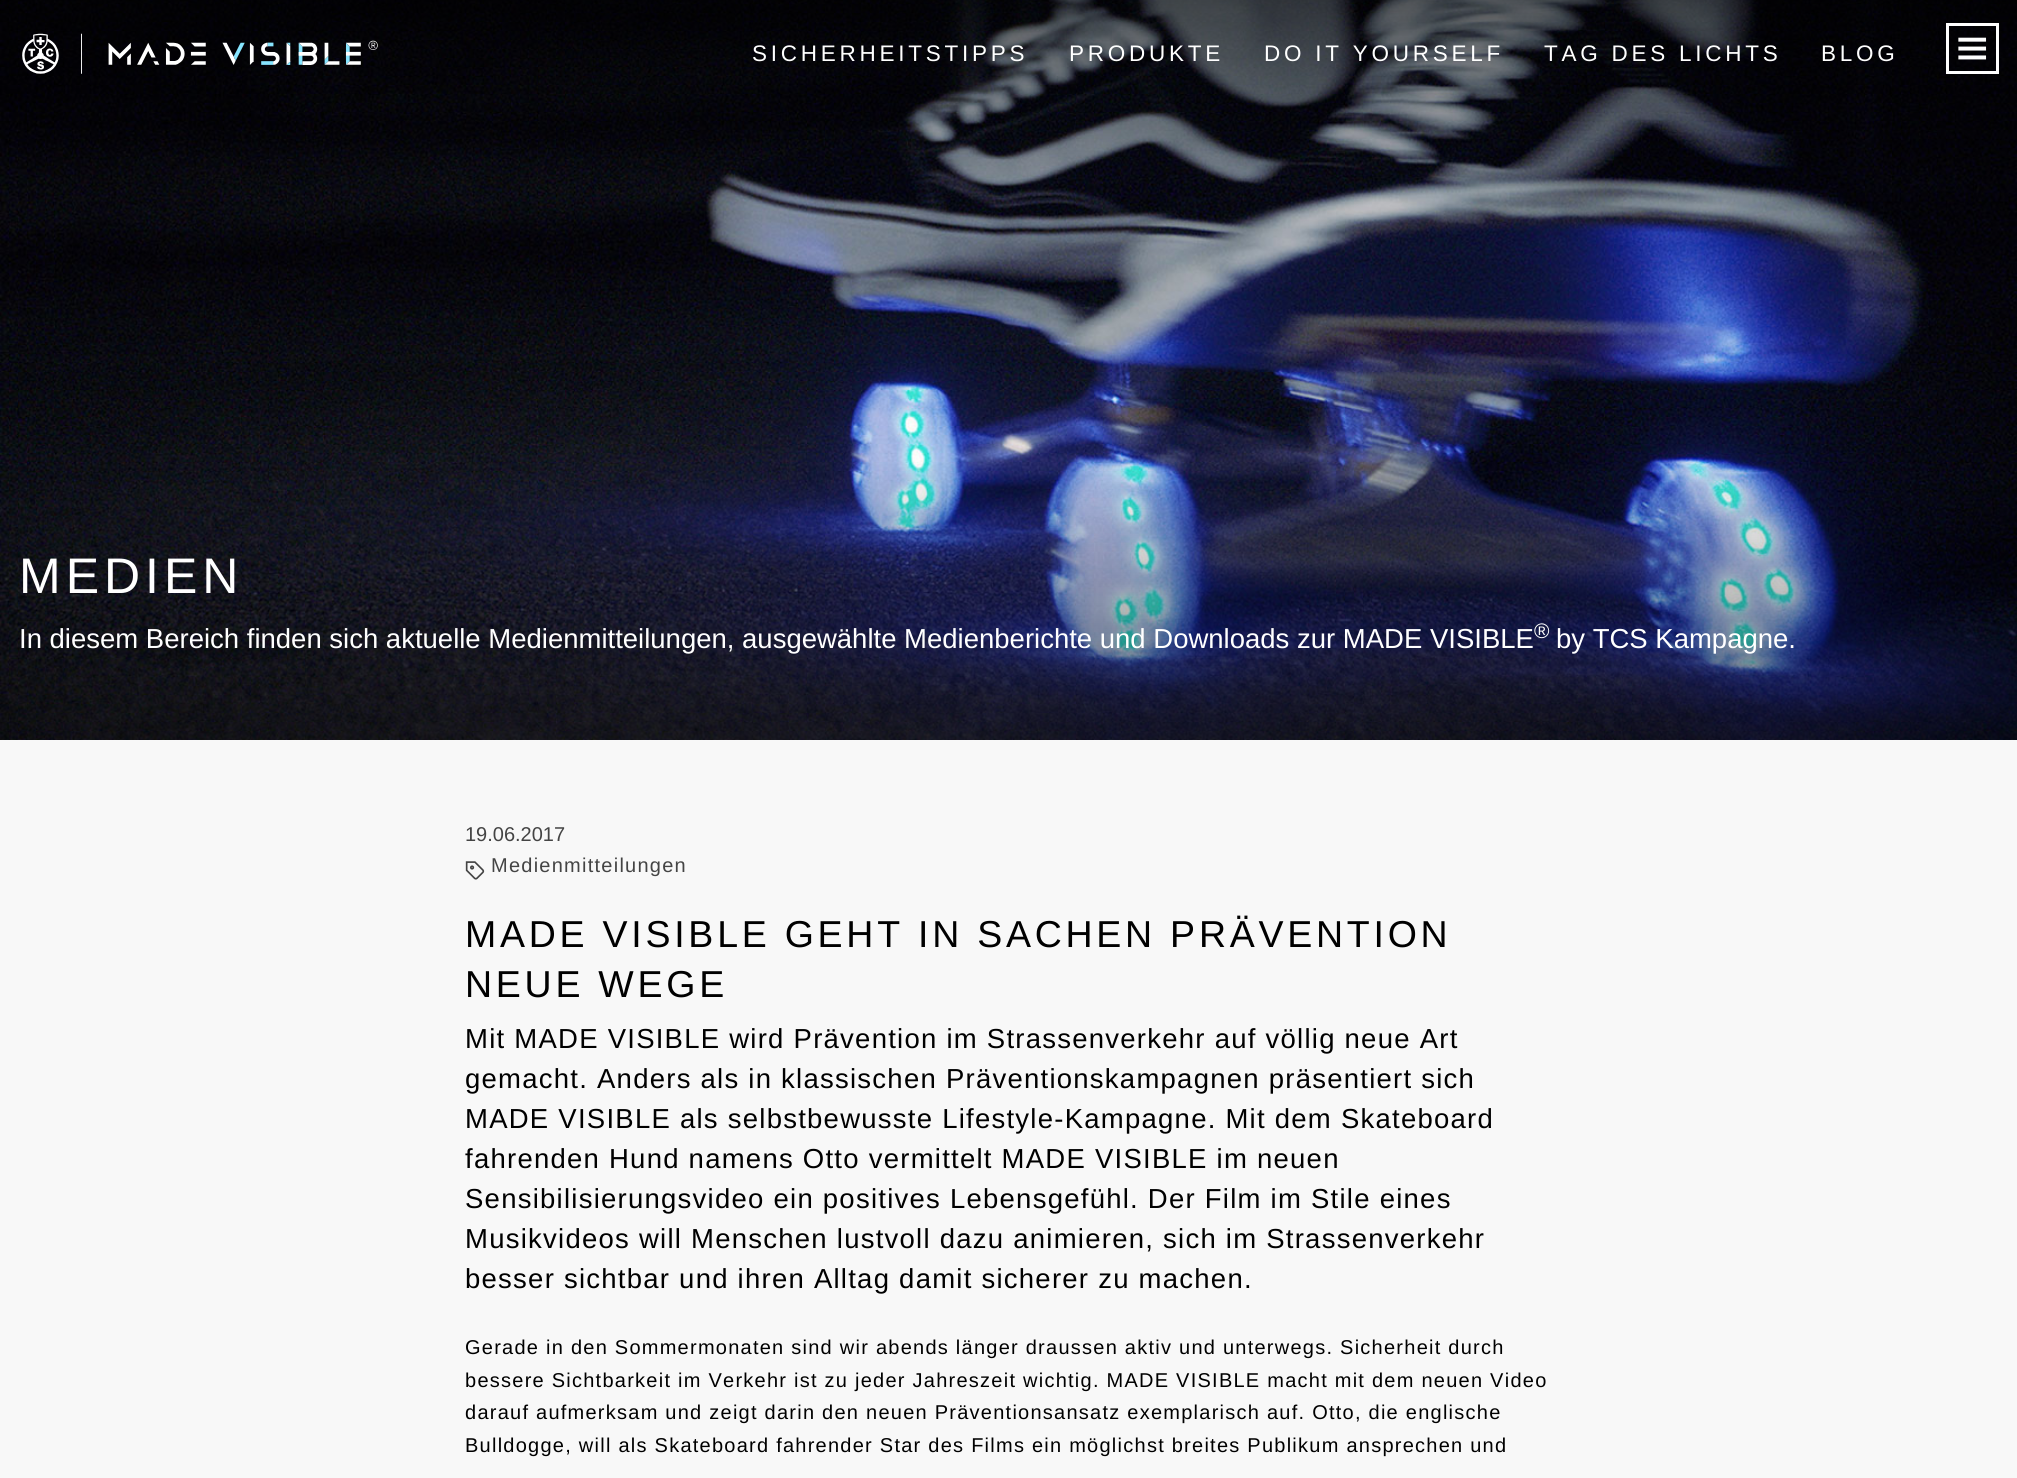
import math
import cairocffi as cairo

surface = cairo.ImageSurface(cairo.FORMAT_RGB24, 2017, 1478)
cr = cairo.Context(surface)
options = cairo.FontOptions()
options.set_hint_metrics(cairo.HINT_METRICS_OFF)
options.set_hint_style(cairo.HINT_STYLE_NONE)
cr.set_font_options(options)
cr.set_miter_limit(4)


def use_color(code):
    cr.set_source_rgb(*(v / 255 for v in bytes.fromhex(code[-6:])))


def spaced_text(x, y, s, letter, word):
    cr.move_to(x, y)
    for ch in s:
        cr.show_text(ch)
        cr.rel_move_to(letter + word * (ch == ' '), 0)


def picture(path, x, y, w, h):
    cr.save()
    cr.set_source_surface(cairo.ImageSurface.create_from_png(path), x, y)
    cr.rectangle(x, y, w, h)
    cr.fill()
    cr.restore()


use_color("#f8f8f8")
cr.paint()
picture("img3.png", 0, 0, 2017, 740)
picture("img1.png", 22, 33, 356, 41)
cr.select_font_face("Liberation Sans")
cr.set_font_size(22.5)
use_color("#ffffff")
spaced_text(752, 61, "SICHERHEITSTIPPS", 3.75, 0)
spaced_text(1069, 61, "PRODUKTE", 3.75, 0)
spaced_text(1264, 61, "DO IT YOURSELF", 3.75, 0)
spaced_text(1544, 61, "TAG DES LICHTS", 3.75, 0)
spaced_text(1821, 61, "BLOG", 3.75, 0)
cr.rectangle(1947.5, 24.5, 50, 48)
cr.set_line_width(3)
cr.stroke()
picture("img2.png", 1958, 37, 29, 23)
cr.set_font_size(50)
spaced_text(19, 593, "MEDIEN", 5, 0)
cr.set_font_size(27.5)
cr.move_to(19, 648)
cr.show_text("In diesem Bereich finden sich aktuelle Medienmitteilungen, ausgewählte Medienberichte und Downloads zur MADE VISIBLE")
cr.set_font_size(21)
cr.move_to(1534, 638)
cr.show_text("®")
cr.set_font_size(27.5)
cr.move_to(1556, 648)
cr.show_text("by TCS Kampagne.")
cr.set_font_size(20)
use_color("#444444")
cr.move_to(465, 841)
cr.show_text("19.06.2017")
picture("img4.png", 465, 861, 20, 19)
spaced_text(491, 872, "Medienmitteilungen", 1.25, 0)
cr.set_font_size(37.5)
use_color("#000000")
spaced_text(465, 947, "MADE VISIBLE GEHT IN SACHEN PRÄVENTION", 3.75, 0)
spaced_text(465, 997, "NEUE WEGE", 3.75, 0)
cr.set_font_size(27.5)
spaced_text(465, 1048, "Mit MADE VISIBLE wird Prävention im Strassenverkehr auf völlig neue Art", 1.25, 0)
spaced_text(465, 1088, "gemacht. Anders als in klassischen Präventionskampagnen präsentiert sich", 1.25, 0)
spaced_text(465, 1128, "MADE VISIBLE als selbstbewusste Lifestyle-Kampagne. Mit dem Skateboard", 1.25, 0)
spaced_text(465, 1168, "fahrenden Hund namens Otto vermittelt MADE VISIBLE im neuen", 1.25, 0)
spaced_text(465, 1208, "Sensibilisierungsvideo ein positives Lebensgefühl. Der Film im Stile eines", 1.25, 0)
spaced_text(465, 1248, "Musikvideos will Menschen lustvoll dazu animieren, sich im Strassenverkehr", 1.25, 0)
spaced_text(465, 1288, "besser sichtbar und ihren Alltag damit sicherer zu machen.", 1.25, 0)
cr.set_font_size(20)
spaced_text(465, 1354, "Gerade in den Sommermonaten sind wir abends länger draussen aktiv und unterwegs. Sicherheit durch", 1.25, 0)
spaced_text(465, 1387, "bessere Sichtbarkeit im Verkehr ist zu jeder Jahreszeit wichtig. MADE VISIBLE macht mit dem neuen Video", 1.25, 0)
spaced_text(465, 1419, "darauf aufmerksam und zeigt darin den neuen Präventionsansatz exemplarisch auf. Otto, die englische", 1.25, 0)
spaced_text(465, 1452, "Bulldogge, will als Skateboard fahrender Star des Films ein möglichst breites Publikum ansprechen und", 1.25, 0)
surface.write_to_png("result.png")
